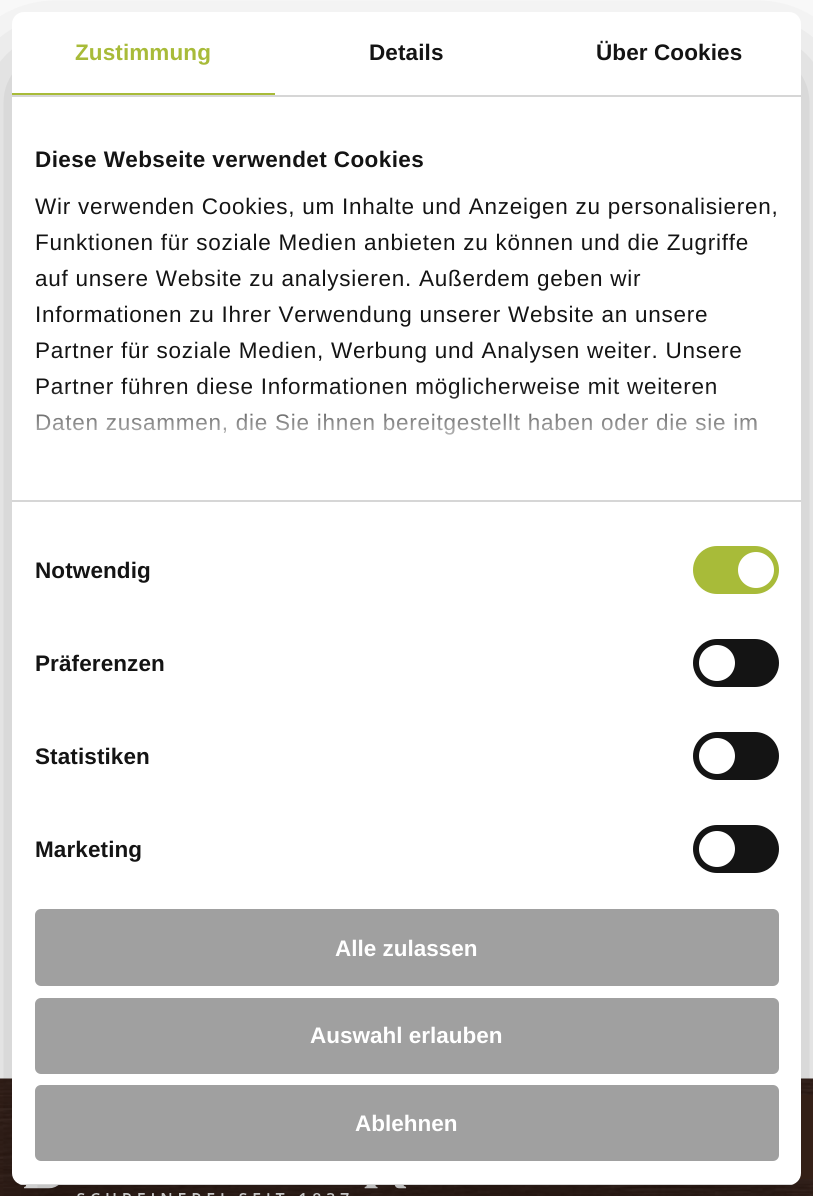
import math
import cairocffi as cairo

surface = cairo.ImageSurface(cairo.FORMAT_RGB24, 813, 1196)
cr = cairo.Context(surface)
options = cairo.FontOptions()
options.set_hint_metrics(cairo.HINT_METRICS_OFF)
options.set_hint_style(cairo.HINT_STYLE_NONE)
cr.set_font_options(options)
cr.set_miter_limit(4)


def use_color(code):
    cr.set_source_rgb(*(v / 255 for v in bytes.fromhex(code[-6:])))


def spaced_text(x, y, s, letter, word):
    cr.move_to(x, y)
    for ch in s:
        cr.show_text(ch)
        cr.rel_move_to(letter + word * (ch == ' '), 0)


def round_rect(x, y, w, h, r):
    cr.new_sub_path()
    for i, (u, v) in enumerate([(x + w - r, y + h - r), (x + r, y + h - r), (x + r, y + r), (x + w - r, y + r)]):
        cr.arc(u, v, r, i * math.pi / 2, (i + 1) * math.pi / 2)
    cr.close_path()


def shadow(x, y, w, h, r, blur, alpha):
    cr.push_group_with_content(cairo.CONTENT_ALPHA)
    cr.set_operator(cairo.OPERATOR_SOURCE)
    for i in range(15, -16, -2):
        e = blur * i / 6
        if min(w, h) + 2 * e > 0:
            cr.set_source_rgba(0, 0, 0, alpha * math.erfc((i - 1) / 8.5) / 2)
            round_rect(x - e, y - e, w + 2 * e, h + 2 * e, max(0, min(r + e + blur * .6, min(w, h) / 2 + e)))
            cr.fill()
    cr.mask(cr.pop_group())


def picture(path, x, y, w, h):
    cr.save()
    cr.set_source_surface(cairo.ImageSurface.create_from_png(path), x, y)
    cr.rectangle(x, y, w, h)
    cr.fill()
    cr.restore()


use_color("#ffffff")
cr.paint()
picture("img1.png", 0, 1078, 813, 118)
picture("img2.png", 24, 1185, 383, 11)
use_color("#3c241a")
cr.rectangle(799, 1095, 14, 84)
cr.fill()
use_color("#000000")
shadow(12, 60, 789, 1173, 12, 51, 0.3)
use_color("#ffffff")
round_rect(12, 12, 789, 1173, 12)
cr.fill()
use_color("#d6d6d6")
cr.rectangle(12, 95, 789, 2)
cr.fill()
use_color("#a8bb39")
cr.rectangle(12, 93, 263, 2)
cr.fill()
cr.select_font_face("Liberation Sans", cairo.FONT_SLANT_NORMAL, cairo.FONT_WEIGHT_BOLD)
cr.set_font_size(22.5)
spaced_text(75, 60, "Zustimmung", 0.1, 0)
use_color("#141414")
spaced_text(369, 60, "Details", 0.1, 0)
spaced_text(596, 60, "Über Cookies", 0.1, 0)
use_color("#d6d6d6")
cr.rectangle(12, 500, 789, 2)
cr.fill()
use_color("#141414")
spaced_text(35, 167, "Diese Webseite verwendet Cookies", 0.4, 0)
cr.select_font_face("Liberation Sans")
spaced_text(35, 214, "Wir verwenden Cookies, um Inhalte und Anzeigen zu personalisieren,", 0.75, 0)
spaced_text(35, 250, "Funktionen für soziale Medien anbieten zu können und die Zugriffe", 0.75, 0)
spaced_text(35, 286, "auf unsere Website zu analysieren. Außerdem geben wir", 0.75, 0)
spaced_text(35, 322, "Informationen zu Ihrer Verwendung unserer Website an unsere", 0.75, 0)
spaced_text(35, 358, "Partner für soziale Medien, Werbung und Analysen weiter. Unsere", 0.75, 0)
spaced_text(35, 394, "Partner führen diese Informationen möglicherweise mit weiteren", 0.75, 0)
spaced_text(35, 430, "Daten zusammen, die Sie ihnen bereitgestellt haben oder die sie im", 0.75, 0)
gradient = cairo.LinearGradient(397, 500, 397, 387)
gradient.add_color_stop_rgba(0, 1, 1, 1, 1)
gradient.add_color_stop_rgba(0.5, 1, 1, 1, 0.8)
gradient.add_color_stop_rgba(1, 1, 1, 1, 0)
cr.set_source(gradient)
cr.rectangle(36, 389, 720, 46)
cr.fill()
cr.select_font_face("Liberation Sans", cairo.FONT_SLANT_NORMAL, cairo.FONT_WEIGHT_BOLD)
use_color("#141414")
spaced_text(35, 578, "Notwendig", 0.1, 0)
use_color("#a8bb39")
round_rect(693, 546, 86, 48, 24)
cr.fill()
use_color("#ffffff")
cr.arc(756, 570, 18, 0, 2 * math.pi)
cr.fill()
use_color("#141414")
spaced_text(35, 671, "Präferenzen", 0.1, 0)
round_rect(693, 639, 86, 48, 24)
cr.fill()
use_color("#ffffff")
cr.arc(717, 663, 18, 0, 2 * math.pi)
cr.fill()
use_color("#141414")
spaced_text(35, 764, "Statistiken", 0.1, 0)
round_rect(693, 732, 86, 48, 24)
cr.fill()
use_color("#ffffff")
cr.arc(717, 756, 18, 0, 2 * math.pi)
cr.fill()
use_color("#141414")
spaced_text(35, 857, "Marketing", 0.1, 0)
round_rect(693, 825, 86, 48, 24)
cr.fill()
use_color("#ffffff")
cr.arc(717, 849, 18, 0, 2 * math.pi)
cr.fill()
cr.save()
round_rect(12, 12, 789, 1173, 12)
cr.clip()
use_color("#d6d6d6")
cr.rectangle(12, 1184, 789, 1)
cr.fill()
cr.restore()
use_color("#a0a0a0")
round_rect(36.5, 910.5, 741, 74, 4.5)
cr.fill_preserve()
cr.set_line_width(3)
cr.stroke()
use_color("#ffffff")
cr.move_to(335, 956)
cr.show_text("Alle zulassen")
use_color("#a0a0a0")
round_rect(36.5, 999.5, 741, 73, 4.5)
cr.fill_preserve()
cr.stroke()
use_color("#ffffff")
cr.move_to(310, 1043)
cr.show_text("Auswahl erlauben")
use_color("#a0a0a0")
round_rect(36.5, 1086.5, 741, 73, 4.5)
cr.fill_preserve()
cr.stroke()
use_color("#ffffff")
cr.move_to(355, 1131)
cr.show_text("Ablehnen")
surface.write_to_png("result.png")
